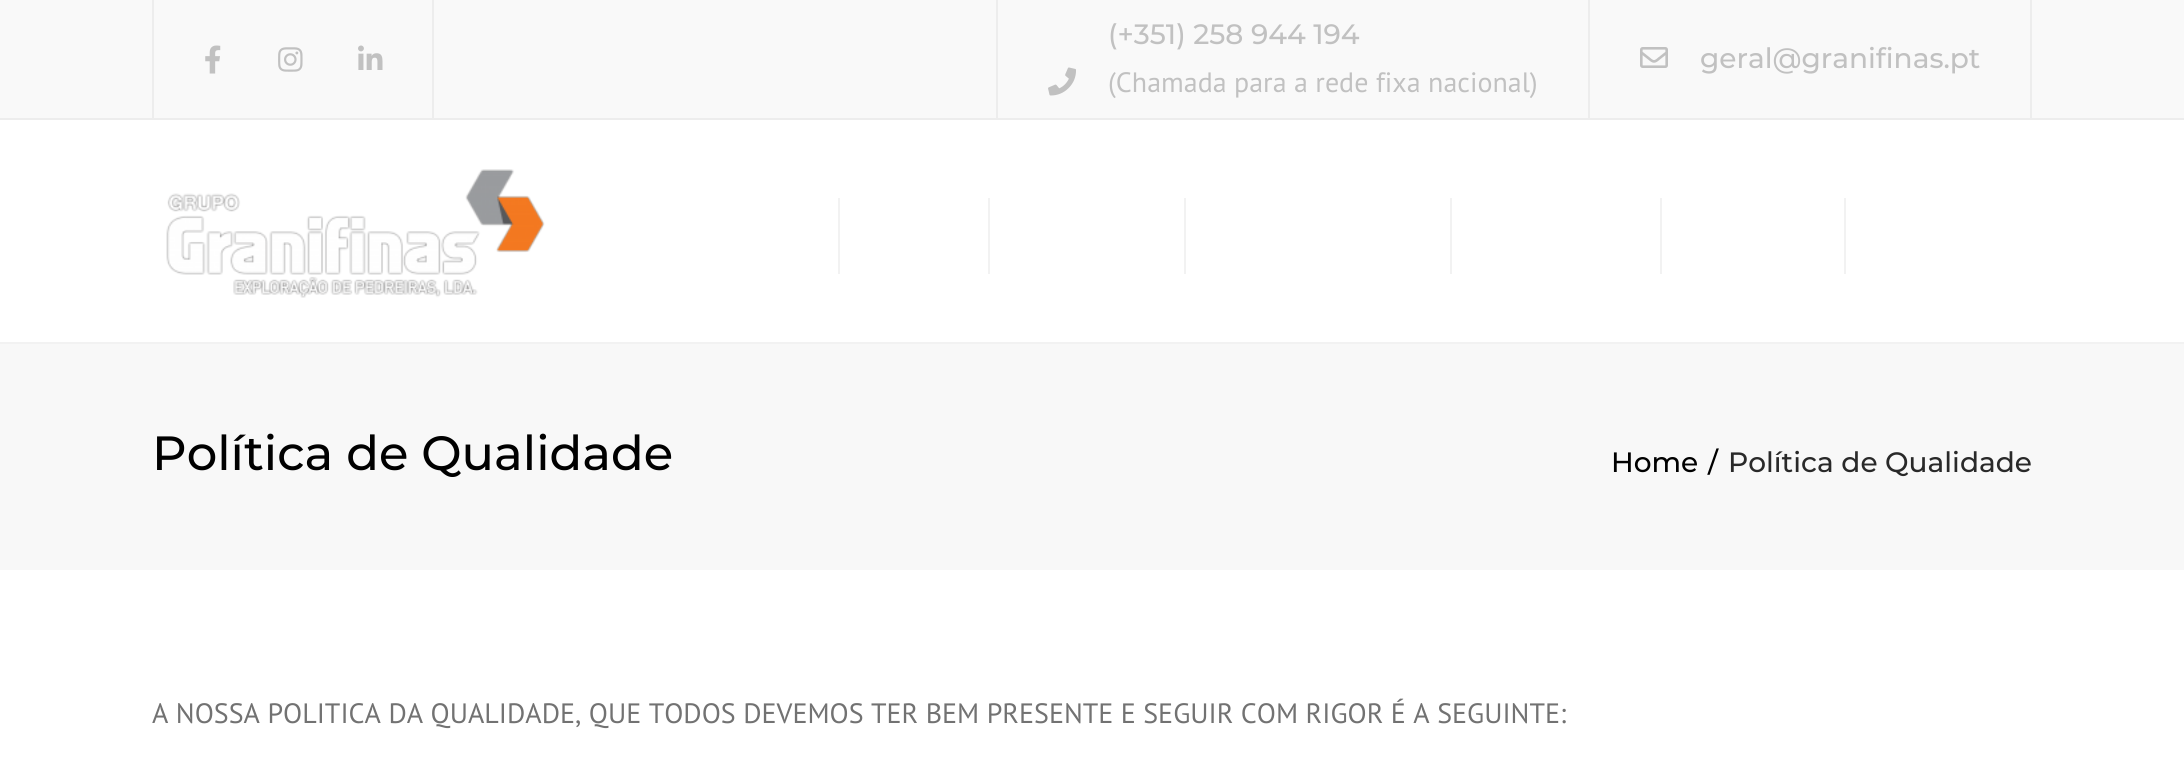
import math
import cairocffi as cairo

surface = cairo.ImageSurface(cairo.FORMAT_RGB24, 2184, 781)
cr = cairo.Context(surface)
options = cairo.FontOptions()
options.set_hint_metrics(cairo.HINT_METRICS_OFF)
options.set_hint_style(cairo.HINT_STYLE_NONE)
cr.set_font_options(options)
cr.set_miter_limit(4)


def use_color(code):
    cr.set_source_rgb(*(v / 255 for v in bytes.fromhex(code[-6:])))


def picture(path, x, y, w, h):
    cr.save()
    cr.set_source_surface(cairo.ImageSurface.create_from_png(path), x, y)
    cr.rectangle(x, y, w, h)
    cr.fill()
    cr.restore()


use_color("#ffffff")
cr.paint()
use_color("#f9f9f9")
cr.rectangle(0, 0, 2184, 118)
cr.fill()
use_color("#ededed")
cr.rectangle(0, 118, 2184, 2)
cr.fill()
cr.rectangle(432, 0, 2, 118)
cr.fill()
cr.rectangle(152, 0, 2, 118)
cr.fill()
picture("img1.png", 205, 45, 16, 29)
picture("img2.png", 278, 47, 25, 25)
picture("img3.png", 358, 45, 25, 25)
cr.rectangle(996, 0, 2, 118)
cr.fill()
picture("img4.png", 1048, 67, 28, 29)
cr.select_font_face("Montserrat Medium")
cr.set_font_size(28)
use_color("#c1c1c1")
cr.move_to(1108, 44)
cr.show_text("(+351) 258 944 194")
cr.select_font_face("PT Sans")
cr.move_to(1108, 92)
cr.show_text("(Chamada para a rede fixa nacional)")
use_color("#ededed")
cr.rectangle(2030, 0, 2, 118)
cr.fill()
cr.rectangle(1588, 0, 2, 118)
cr.fill()
picture("img5.png", 1640, 47, 28, 21)
cr.select_font_face("Montserrat Medium")
use_color("#c1c1c1")
cr.move_to(1700, 68)
cr.show_text("geral@granifinas.pt")
use_color("#f2f2f2")
cr.rectangle(0, 342, 2184, 2)
cr.fill()
picture("img6.png", 166, 169, 379, 129)
cr.rectangle(838, 198, 2, 76)
cr.fill()
cr.rectangle(988, 198, 2, 76)
cr.fill()
cr.rectangle(1184, 198, 2, 76)
cr.fill()
cr.rectangle(1450, 198, 2, 76)
cr.fill()
cr.rectangle(1660, 198, 2, 76)
cr.fill()
cr.rectangle(1844, 198, 2, 76)
cr.fill()
use_color("#f8f8f8")
cr.rectangle(0, 344, 2184, 226)
cr.fill()
cr.set_font_size(48)
use_color("#000000")
cr.move_to(152, 470)
cr.show_text("Política de Qualidade")
cr.set_font_size(28)
cr.move_to(1611, 472)
cr.show_text("Home")
cr.move_to(1708, 472)
cr.show_text("/")
use_color("#292929")
cr.move_to(1728, 472)
cr.show_text("Política de Qualidade")
cr.select_font_face("PT Sans")
use_color("#727272")
cr.move_to(152, 723)
cr.show_text("A NOSSA POLITICA DA QUALIDADE, QUE TODOS DEVEMOS TER BEM PRESENTE E SEGUIR COM RIGOR É A SEGUINTE:")
surface.write_to_png("result.png")
